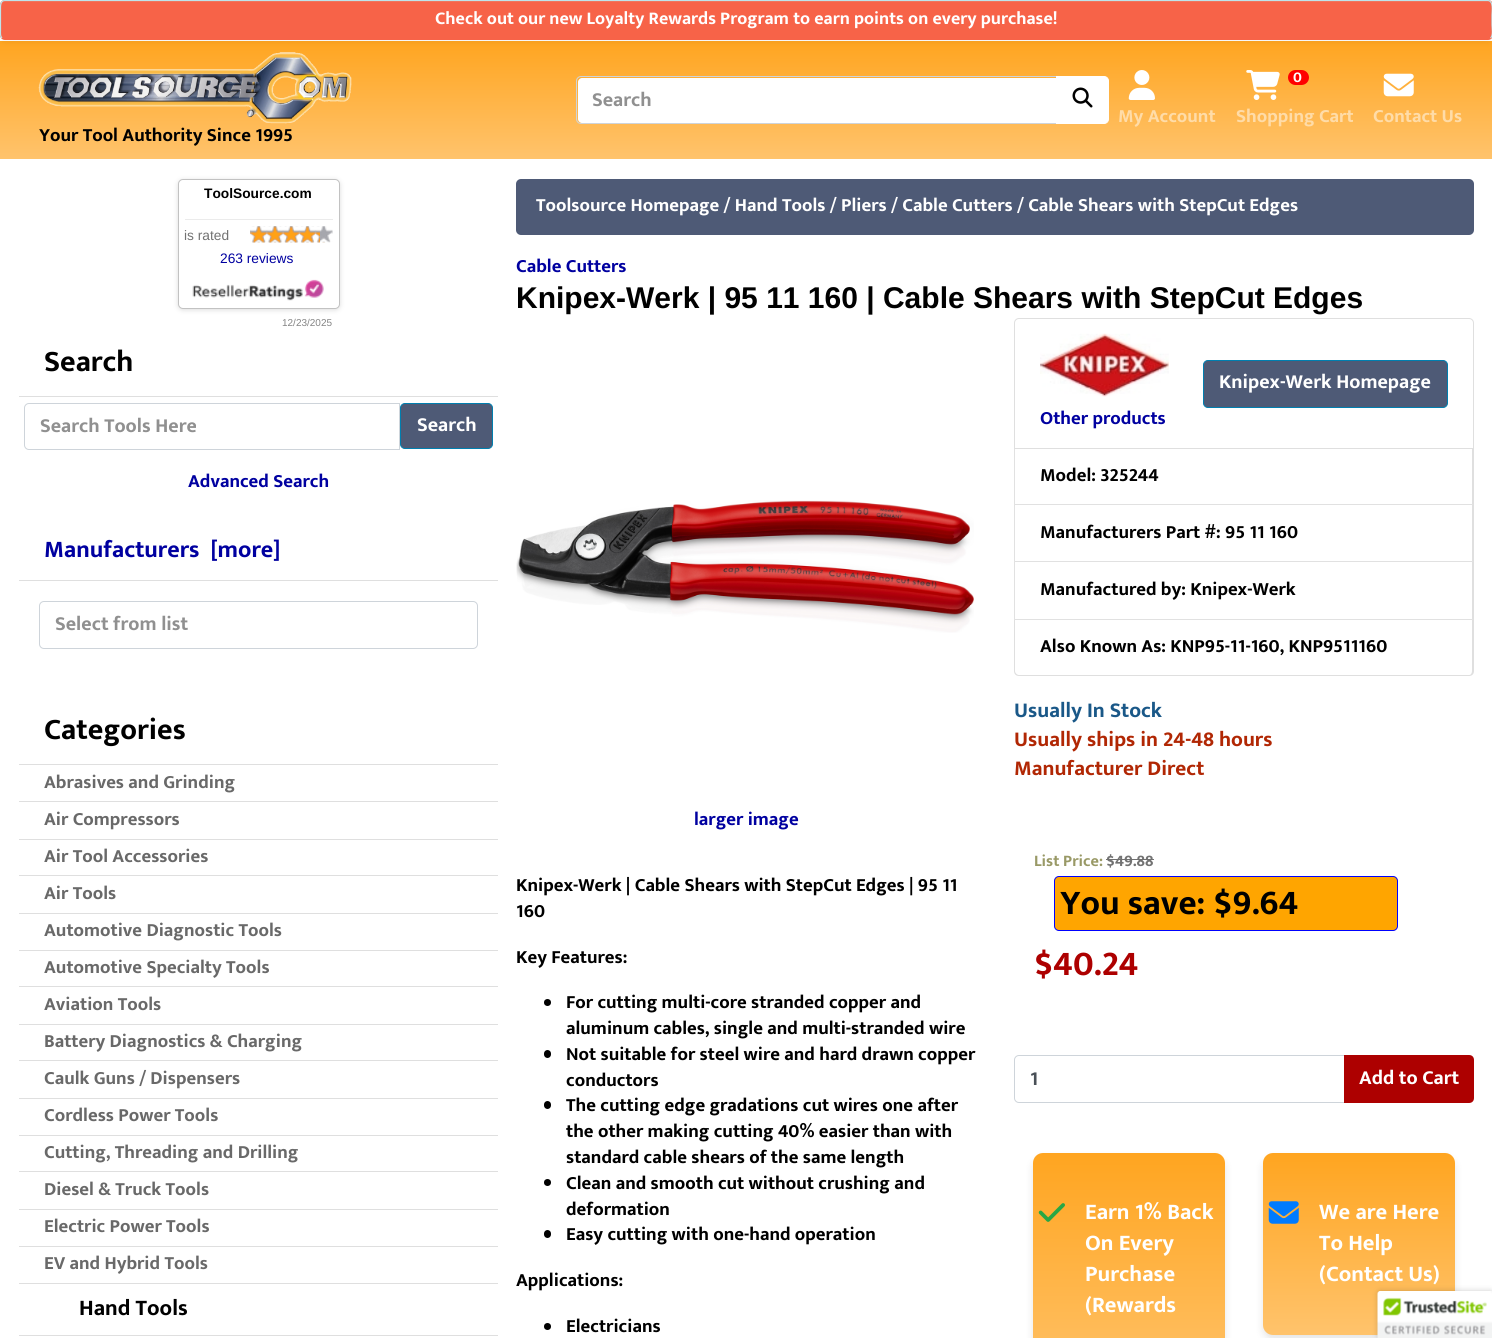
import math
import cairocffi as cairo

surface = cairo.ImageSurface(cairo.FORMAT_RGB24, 1492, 1338)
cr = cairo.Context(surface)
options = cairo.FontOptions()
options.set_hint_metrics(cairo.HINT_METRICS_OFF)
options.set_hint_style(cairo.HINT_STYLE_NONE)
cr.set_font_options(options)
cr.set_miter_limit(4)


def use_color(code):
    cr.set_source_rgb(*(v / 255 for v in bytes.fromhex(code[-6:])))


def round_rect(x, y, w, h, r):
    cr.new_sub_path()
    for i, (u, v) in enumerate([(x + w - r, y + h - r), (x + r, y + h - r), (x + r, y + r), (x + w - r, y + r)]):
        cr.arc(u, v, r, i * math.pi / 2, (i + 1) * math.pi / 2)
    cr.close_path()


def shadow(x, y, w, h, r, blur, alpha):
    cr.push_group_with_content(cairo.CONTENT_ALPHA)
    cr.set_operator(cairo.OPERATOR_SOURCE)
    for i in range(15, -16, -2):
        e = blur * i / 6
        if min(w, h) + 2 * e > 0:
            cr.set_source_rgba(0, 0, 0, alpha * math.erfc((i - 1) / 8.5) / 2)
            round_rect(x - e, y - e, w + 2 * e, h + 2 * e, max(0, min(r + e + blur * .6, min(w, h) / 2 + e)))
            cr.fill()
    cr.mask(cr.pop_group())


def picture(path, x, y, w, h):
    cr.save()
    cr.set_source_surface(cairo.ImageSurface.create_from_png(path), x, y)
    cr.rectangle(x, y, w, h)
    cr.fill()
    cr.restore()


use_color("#ffffff")
cr.paint()
gradient = cairo.LinearGradient(746, 41, 746, 159)
gradient.add_color_stop_rgba(0, 1, 0.647, 0.125, 1)
gradient.add_color_stop_rgba(1, 1, 0.765, 0.424, 1)
cr.set_source(gradient)
cr.rectangle(0, 41, 1492, 118)
cr.fill()
use_color("#000000")
shadow(0, 3, 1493, 40, 5, 2.5, 0.04)
use_color("#f76348")
round_rect(0, 0, 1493, 40, 5)
cr.fill()
cr.new_path()
cr.move_to(2, 38)
cr.curve_to(0, 36, 0.5, 32.5, 0.5, 30)
cr.line_to(0.5, 10)
cr.curve_to(0.5, 6.5, 0, 0.5, 5, 0.5)
cr.line_to(1487.5, 0.5)
cr.curve_to(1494, 0.5, 1492, 11.5, 1492, 15)
cr.line_to(1492, 25)
cr.curve_to(1492, 28, 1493.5, 35.5, 1490.5, 38)
use_color("#bee5eb")
cr.set_line_width(1.2)
cr.stroke()
cr.select_font_face("Mukta", cairo.FONT_SLANT_NORMAL, cairo.FONT_WEIGHT_BOLD)
cr.set_font_size(18)
use_color("#ffffff")
cr.move_to(435, 24)
cr.show_text("Check out our new Loyalty Rewards Program to earn points on every purchase!")
cr.new_path()
cr.move_to(582, 78)
cr.line_to(1056, 78)
cr.line_to(1056, 123)
cr.line_to(582, 123)
cr.curve_to(580, 123, 578, 121, 578, 119)
cr.line_to(578, 82)
cr.curve_to(578, 80, 580, 78, 582, 78)
cr.close_path()
cr.fill()
cr.new_path()
cr.move_to(581, 76.5)
cr.line_to(1057.5, 76.5)
cr.line_to(1057.5, 123.5)
cr.line_to(581, 123.5)
cr.curve_to(578.5, 123.5, 576.5, 121.5, 576.5, 119)
cr.line_to(576.5, 81)
cr.curve_to(576.5, 78.5, 578.5, 76.5, 581, 76.5)
cr.close_path()
use_color("#ced4da")
cr.set_line_width(1)
cr.stroke()
cr.set_font_size(20)
use_color("#909090")
cr.move_to(592, 106)
cr.show_text("Search")
use_color("#ffffff")
cr.new_path()
cr.move_to(1056.5, 76.5)
cr.line_to(1104, 76.5)
cr.curve_to(1106.5, 76.5, 1108.5, 78.5, 1108.5, 81)
cr.line_to(1108.5, 119)
cr.curve_to(1108.5, 121.5, 1106.5, 123.5, 1104, 123.5)
cr.line_to(1056.5, 123.5)
cr.close_path()
cr.fill_preserve()
cr.stroke()
picture("img1.png", 1072, 87, 21, 21)
picture("img2.png", 1128, 70, 27, 30)
cr.set_font_size(18.75)
use_color("#ffdca8")
cr.move_to(1118, 122)
cr.show_text("My Account")
picture("img3.png", 1246, 70, 34, 30)
use_color("#ff0000")
round_rect(1288, 70, 21, 15, 7.5)
cr.fill()
cr.set_font_size(15)
use_color("#ffffff")
cr.move_to(1293, 82)
cr.show_text("0")
cr.set_font_size(18.75)
use_color("#ffdca8")
cr.move_to(1236, 122)
cr.show_text("Shopping Cart")
picture("img4.png", 1383, 73, 31, 24)
cr.move_to(1373, 122)
cr.show_text("Contact Us")
picture("img5.png", 38, 52, 314, 72)
use_color("#000000")
cr.move_to(39, 141)
cr.show_text("Your Tool Authority Since 1995")
use_color("#dddddd")
shadow(178, 180, 162, 130, 5, 2.5, 1)
use_color("#ffffff")
round_rect(178.5, 179.5, 161, 129, 4.5)
cr.fill_preserve()
use_color("#c2c2c2")
cr.stroke()
cr.select_font_face("Liberation Sans", cairo.FONT_SLANT_NORMAL, cairo.FONT_WEIGHT_BOLD)
cr.set_font_size(13.75)
use_color("#000000")
cr.move_to(204, 198)
cr.show_text("ToolSource.com")
use_color("#ebebeb")
cr.rectangle(185, 219, 148, 1)
cr.fill()
cr.select_font_face("Liberation Sans")
use_color("#727272")
cr.move_to(184, 240)
cr.show_text("is rated")
picture("img6.png", 250, 226, 83, 17)
picture("img7.png", 250, 226, 70, 17)
use_color("#0000a0")
cr.move_to(220, 263)
cr.show_text("263 reviews")
picture("img8.png", 192, 279, 132, 22)
cr.set_font_size(10)
use_color("#848484")
cr.move_to(282, 326)
cr.show_text("12/23/2025")
use_color("#dfdfdf")
cr.rectangle(19, 396, 479, 1)
cr.fill()
cr.select_font_face("Mukta", cairo.FONT_SLANT_NORMAL, cairo.FONT_WEIGHT_BOLD)
cr.set_font_size(30)
use_color("#000000")
cr.move_to(44, 371)
cr.show_text("Search")
cr.new_path()
cr.move_to(29, 403.5)
cr.line_to(399.5, 403.5)
cr.line_to(399.5, 449.5)
cr.line_to(29, 449.5)
cr.curve_to(26.5, 449.5, 24.5, 447.5, 24.5, 445)
cr.line_to(24.5, 408)
cr.curve_to(24.5, 405.5, 26.5, 403.5, 29, 403.5)
cr.close_path()
use_color("#ced4da")
cr.stroke()
cr.set_font_size(20)
use_color("#909090")
cr.move_to(40, 432)
cr.show_text("Search Tools Here")
use_color("#4e5a76")
round_rect(400.5, 403.5, 92, 45, 4.5)
cr.fill_preserve()
use_color("#007faf")
cr.stroke()
use_color("#ffffff")
cr.move_to(417, 431)
cr.show_text("Search")
cr.set_font_size(18.75)
use_color("#0000a0")
cr.move_to(188, 487)
cr.show_text("Advanced Search")
use_color("#dfdfdf")
cr.rectangle(19, 580, 479, 1)
cr.fill()
cr.set_font_size(24)
use_color("#0000a0")
cr.move_to(44, 557)
cr.show_text("Manufacturers  [more]")
round_rect(39.5, 601.5, 438, 47, 4.5)
use_color("#ced4da")
cr.stroke()
cr.set_font_size(20)
use_color("#909090")
cr.move_to(55, 630)
cr.show_text("Select from list")
use_color("#dfdfdf")
cr.rectangle(19, 764, 479, 1)
cr.fill()
cr.set_font_size(30)
use_color("#000000")
cr.move_to(44, 739)
cr.show_text("Categories")
use_color("#dfdfdf")
cr.rectangle(19, 801, 479, 1)
cr.fill()
cr.set_font_size(18.75)
use_color("#696969")
cr.move_to(44, 788)
cr.show_text("Abrasives and Grinding")
use_color("#dfdfdf")
cr.rectangle(19, 839, 479, 1)
cr.fill()
use_color("#696969")
cr.move_to(44, 825)
cr.show_text("Air Compressors")
use_color("#dfdfdf")
cr.rectangle(19, 875, 479, 1)
cr.fill()
use_color("#696969")
cr.move_to(44, 862)
cr.show_text("Air Tool Accessories")
use_color("#dfdfdf")
cr.rectangle(19, 913, 479, 1)
cr.fill()
use_color("#696969")
cr.move_to(44, 899)
cr.show_text("Air Tools")
use_color("#dfdfdf")
cr.rectangle(19, 950, 479, 1)
cr.fill()
use_color("#696969")
cr.move_to(44, 936)
cr.show_text("Automotive Diagnostic Tools")
use_color("#dfdfdf")
cr.rectangle(19, 986, 479, 1)
cr.fill()
use_color("#696969")
cr.move_to(44, 973)
cr.show_text("Automotive Specialty Tools")
use_color("#dfdfdf")
cr.rectangle(19, 1024, 479, 1)
cr.fill()
use_color("#696969")
cr.move_to(44, 1010)
cr.show_text("Aviation Tools")
use_color("#dfdfdf")
cr.rectangle(19, 1060, 479, 1)
cr.fill()
use_color("#696969")
cr.move_to(44, 1047)
cr.show_text("Battery Diagnostics & Charging")
use_color("#dfdfdf")
cr.rectangle(19, 1098, 479, 1)
cr.fill()
use_color("#696969")
cr.move_to(44, 1084)
cr.show_text("Caulk Guns / Dispensers")
use_color("#dfdfdf")
cr.rectangle(19, 1135, 479, 1)
cr.fill()
use_color("#696969")
cr.move_to(44, 1121)
cr.show_text("Cordless Power Tools")
use_color("#dfdfdf")
cr.rectangle(19, 1171, 479, 1)
cr.fill()
use_color("#696969")
cr.move_to(44, 1158)
cr.show_text("Cutting, Threading and Drilling")
use_color("#dfdfdf")
cr.rectangle(19, 1209, 479, 1)
cr.fill()
use_color("#696969")
cr.move_to(44, 1195)
cr.show_text("Diesel & Truck Tools")
use_color("#dfdfdf")
cr.rectangle(19, 1246, 479, 1)
cr.fill()
use_color("#696969")
cr.move_to(44, 1232)
cr.show_text("Electric Power Tools")
use_color("#dfdfdf")
cr.rectangle(19, 1283, 479, 1)
cr.fill()
use_color("#696969")
cr.move_to(44, 1269)
cr.show_text("EV and Hybrid Tools")
use_color("#dfdfdf")
cr.rectangle(19, 1335, 479, 1)
cr.fill()
cr.set_font_size(22.5)
use_color("#000000")
cr.move_to(79, 1315)
cr.show_text("Hand Tools")
use_color("#4e5a76")
round_rect(516, 179, 958, 56, 5)
cr.fill()
cr.set_font_size(18.75)
use_color("#ffffff")
cr.move_to(536, 211)
cr.show_text("Toolsource Homepage / Hand Tools / Pliers / Cable Cutters / Cable Shears with StepCut Edges")
use_color("#0000a0")
cr.move_to(516, 272)
cr.show_text("Cable Cutters")
cr.select_font_face("Liberation Sans", cairo.FONT_SLANT_NORMAL, cairo.FONT_WEIGHT_BOLD)
cr.set_font_size(30)
use_color("#000000")
cr.move_to(516, 308)
cr.show_text("Knipex-Werk | 95 11 160 | Cable Shears with StepCut Edges")
picture("img9.png", 516, 500, 458, 133)
cr.select_font_face("Mukta", cairo.FONT_SLANT_NORMAL, cairo.FONT_WEIGHT_BOLD)
cr.set_font_size(18.75)
use_color("#0000a0")
cr.move_to(694, 825)
cr.show_text("larger image")
use_color("#000000")
cr.move_to(516, 891)
cr.show_text("Knipex-Werk | Cable Shears with StepCut Edges | 95 11")
cr.move_to(516, 917)
cr.show_text("160")
cr.move_to(516, 963)
cr.show_text("Key Features:")
cr.new_path()
cr.arc(547.5, 1002.5, 3.5, 0, 2 * math.pi)
cr.fill()
cr.move_to(566, 1008)
cr.show_text("For cutting multi-core stranded copper and")
cr.move_to(566, 1034)
cr.show_text("aluminum cables, single and multi-stranded wire")
round_rect(544, 1050, 7, 8, 3.5)
cr.fill()
cr.move_to(566, 1060)
cr.show_text("Not suitable for steel wire and hard drawn copper")
cr.move_to(566, 1086)
cr.show_text("conductors")
round_rect(544, 1101, 7, 8, 3.5)
cr.fill()
cr.move_to(566, 1111)
cr.show_text("The cutting edge gradations cut wires one after")
cr.move_to(566, 1137)
cr.show_text("the other making cutting 40% easier than with")
cr.move_to(566, 1163)
cr.show_text("standard cable shears of the same length")
cr.new_path()
cr.arc(547.5, 1182.5, 3.5, 0, 2 * math.pi)
cr.fill()
cr.move_to(566, 1189)
cr.show_text("Clean and smooth cut without crushing and")
cr.move_to(566, 1215)
cr.show_text("deformation")
round_rect(544, 1230, 7, 8, 3.5)
cr.fill()
cr.move_to(566, 1240)
cr.show_text("Easy cutting with one-hand operation")
cr.move_to(516, 1286)
cr.show_text("Applications:")
cr.new_path()
cr.arc(547.5, 1326.5, 3.5, 0, 2 * math.pi)
cr.fill()
cr.move_to(566, 1332)
cr.show_text("Electricians")
cr.new_path()
cr.move_to(1019, 318.5)
cr.line_to(1469, 318.5)
cr.curve_to(1471.5, 318.5, 1473.5, 320.5, 1473.5, 323)
cr.line_to(1473.5, 448.5)
cr.line_to(1014.5, 448.5)
cr.line_to(1014.5, 323)
cr.curve_to(1014.5, 320.5, 1016.5, 318.5, 1019, 318.5)
cr.close_path()
use_color("#dfdfdf")
cr.stroke()
use_color("#4e5a76")
round_rect(1203.5, 360.5, 244, 47, 4.5)
cr.fill_preserve()
use_color("#007faf")
cr.stroke()
cr.set_font_size(20)
use_color("#ffffff")
cr.move_to(1219, 388)
cr.show_text("Knipex-Werk Homepage")
picture("img10.png", 1040, 333, 129, 64)
cr.set_font_size(18.75)
use_color("#0000a0")
cr.move_to(1040, 424)
cr.show_text("Other products")
use_color("#dfdfdf")
cr.new_path()
cr.move_to(1474, 449)
cr.line_to(1474, 505)
cr.line_to(1472, 504)
cr.line_to(1472, 449)
cr.close_path()
cr.fill()
cr.set_source_rgba(0, 0, 0, 0.12)
cr.new_path()
cr.move_to(1474, 505)
cr.line_to(1014, 505)
cr.line_to(1015, 504)
cr.line_to(1472, 504)
cr.close_path()
cr.fill()
cr.new_path()
cr.move_to(1014, 505)
cr.line_to(1014, 449)
cr.line_to(1015, 449)
cr.line_to(1015, 504)
cr.close_path()
cr.fill()
use_color("#000000")
cr.move_to(1040, 481)
cr.show_text("Model: 325244")
use_color("#dfdfdf")
cr.new_path()
cr.move_to(1474, 505)
cr.line_to(1474, 562)
cr.line_to(1472, 561)
cr.line_to(1472, 505)
cr.close_path()
cr.fill()
cr.set_source_rgba(0, 0, 0, 0.12)
cr.new_path()
cr.move_to(1474, 562)
cr.line_to(1014, 562)
cr.line_to(1015, 561)
cr.line_to(1472, 561)
cr.close_path()
cr.fill()
cr.new_path()
cr.move_to(1014, 562)
cr.line_to(1014, 505)
cr.line_to(1015, 505)
cr.line_to(1015, 561)
cr.close_path()
cr.fill()
use_color("#000000")
cr.move_to(1040, 538)
cr.show_text("Manufacturers Part #: 95 11 160")
use_color("#dfdfdf")
cr.new_path()
cr.move_to(1474, 562)
cr.line_to(1474, 620)
cr.line_to(1472, 619)
cr.line_to(1472, 562)
cr.close_path()
cr.fill()
cr.set_source_rgba(0, 0, 0, 0.12)
cr.new_path()
cr.move_to(1474, 620)
cr.line_to(1014, 620)
cr.line_to(1015, 619)
cr.line_to(1472, 619)
cr.close_path()
cr.fill()
cr.new_path()
cr.move_to(1014, 620)
cr.line_to(1014, 562)
cr.line_to(1015, 562)
cr.line_to(1015, 619)
cr.close_path()
cr.fill()
use_color("#000000")
cr.move_to(1040, 595)
cr.show_text("Manufactured by: Knipex-Werk")
use_color("#dfdfdf")
cr.set_fill_rule(cairo.FILL_RULE_EVEN_ODD)
cr.new_path()
cr.move_to(1014, 620)
cr.line_to(1474, 620)
cr.line_to(1474, 671)
cr.curve_to(1474, 674, 1472, 676, 1469, 676)
cr.line_to(1019, 676)
cr.curve_to(1016, 676, 1014, 674, 1014, 671)
cr.close_path()
cr.move_to(1015, 620)
cr.line_to(1472, 620)
cr.line_to(1472, 671)
cr.curve_to(1472, 673, 1471, 675, 1469, 675)
cr.line_to(1019, 675)
cr.curve_to(1017, 675, 1015, 673, 1015, 671)
cr.close_path()
cr.fill()
use_color("#000000")
cr.move_to(1040, 652)
cr.show_text("Also Known As: KNP95-11-160, KNP9511160")
cr.set_font_size(21.25)
use_color("#1a5888")
cr.move_to(1014, 717)
cr.show_text("Usually In Stock")
use_color("#b12704")
cr.move_to(1014, 746)
cr.show_text("Usually ships in 24-48 hours")
cr.move_to(1014, 775)
cr.show_text("Manufacturer Direct")
cr.set_font_size(16.25)
use_color("#999966")
cr.move_to(1034, 866)
cr.show_text("List Price:")
use_color("#727272")
cr.move_to(1106, 866)
cr.show_text("$49.88")
use_color("#707070")
cr.rectangle(1106, 859, 48, 1)
cr.fill()
use_color("#ffa500")
round_rect(1054.5, 876.5, 343, 54, 4.5)
cr.fill_preserve()
use_color("#0000ff")
cr.stroke()
cr.set_font_size(35)
use_color("#000000")
cr.move_to(1060, 914)
cr.show_text("You save: $9.64")
use_color("#ad0000")
cr.move_to(1034, 975)
cr.show_text("$40.24")
cr.new_path()
cr.move_to(1019, 1055.5)
cr.line_to(1344.5, 1055.5)
cr.line_to(1344.5, 1102.5)
cr.line_to(1019, 1102.5)
cr.curve_to(1016.5, 1102.5, 1014.5, 1100.5, 1014.5, 1098)
cr.line_to(1014.5, 1060)
cr.curve_to(1014.5, 1057.5, 1016.5, 1055.5, 1019, 1055.5)
cr.close_path()
use_color("#ced4da")
cr.stroke()
cr.set_font_size(20)
use_color("#495057")
cr.move_to(1030, 1085)
cr.show_text("1")
use_color("#ad0000")
cr.new_path()
cr.move_to(1344, 1055)
cr.line_to(1469, 1055)
cr.curve_to(1472, 1055, 1474, 1057, 1474, 1060)
cr.line_to(1474, 1098)
cr.curve_to(1474, 1101, 1472, 1103, 1469, 1103)
cr.line_to(1344, 1103)
cr.close_path()
cr.fill()
use_color("#ffffff")
cr.move_to(1359, 1084)
cr.show_text("Add to Cart")
use_color("#000000")
shadow(1033, 1158, 192, 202, 10, 4, 0.1)
gradient = cairo.LinearGradient(1129, 1153, 1129, 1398)
gradient.add_color_stop_rgba(0, 1, 0.647, 0.125, 1)
gradient.add_color_stop_rgba(1, 1, 0.765, 0.424, 1)
cr.set_source(gradient)
round_rect(1033, 1153, 192, 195, 10)
cr.fill()
picture("img11.png", 1038, 1203, 27, 19)
cr.set_font_size(22.5)
use_color("#ffffff")
cr.move_to(1085, 1219)
cr.show_text("Earn 1% Back")
cr.move_to(1085, 1250)
cr.show_text("On Every")
cr.move_to(1085, 1281)
cr.show_text("Purchase")
cr.move_to(1085, 1312)
cr.show_text("(Rewards")
use_color("#000000")
shadow(1263, 1158, 192, 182, 10, 4, 0.1)
gradient = cairo.LinearGradient(1359, 1153, 1359, 1335)
gradient.add_color_stop_rgba(0, 1, 0.647, 0.125, 1)
gradient.add_color_stop_rgba(1, 1, 0.765, 0.424, 1)
cr.set_source(gradient)
round_rect(1263, 1153, 192, 182, 10)
cr.fill()
picture("img12.png", 1268, 1201, 31, 23)
use_color("#ffffff")
cr.move_to(1319, 1219)
cr.show_text("We are Here")
cr.move_to(1319, 1250)
cr.show_text("To Help")
cr.move_to(1319, 1281)
cr.show_text("(Contact Us)")
use_color("#000000")
shadow(1378, 1291, 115, 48, 2.5, 3, 0.2)
use_color("#ffffff")
cr.new_path()
cr.move_to(1380.5, 1291)
cr.line_to(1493, 1291)
cr.line_to(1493, 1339)
cr.line_to(1378, 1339)
cr.line_to(1378, 1293.5)
cr.curve_to(1378, 1292, 1379, 1291, 1380.5, 1291)
cr.close_path()
cr.fill()
picture("img13.png", 1377, 1291, 115, 47)
surface.write_to_png("result.png")
